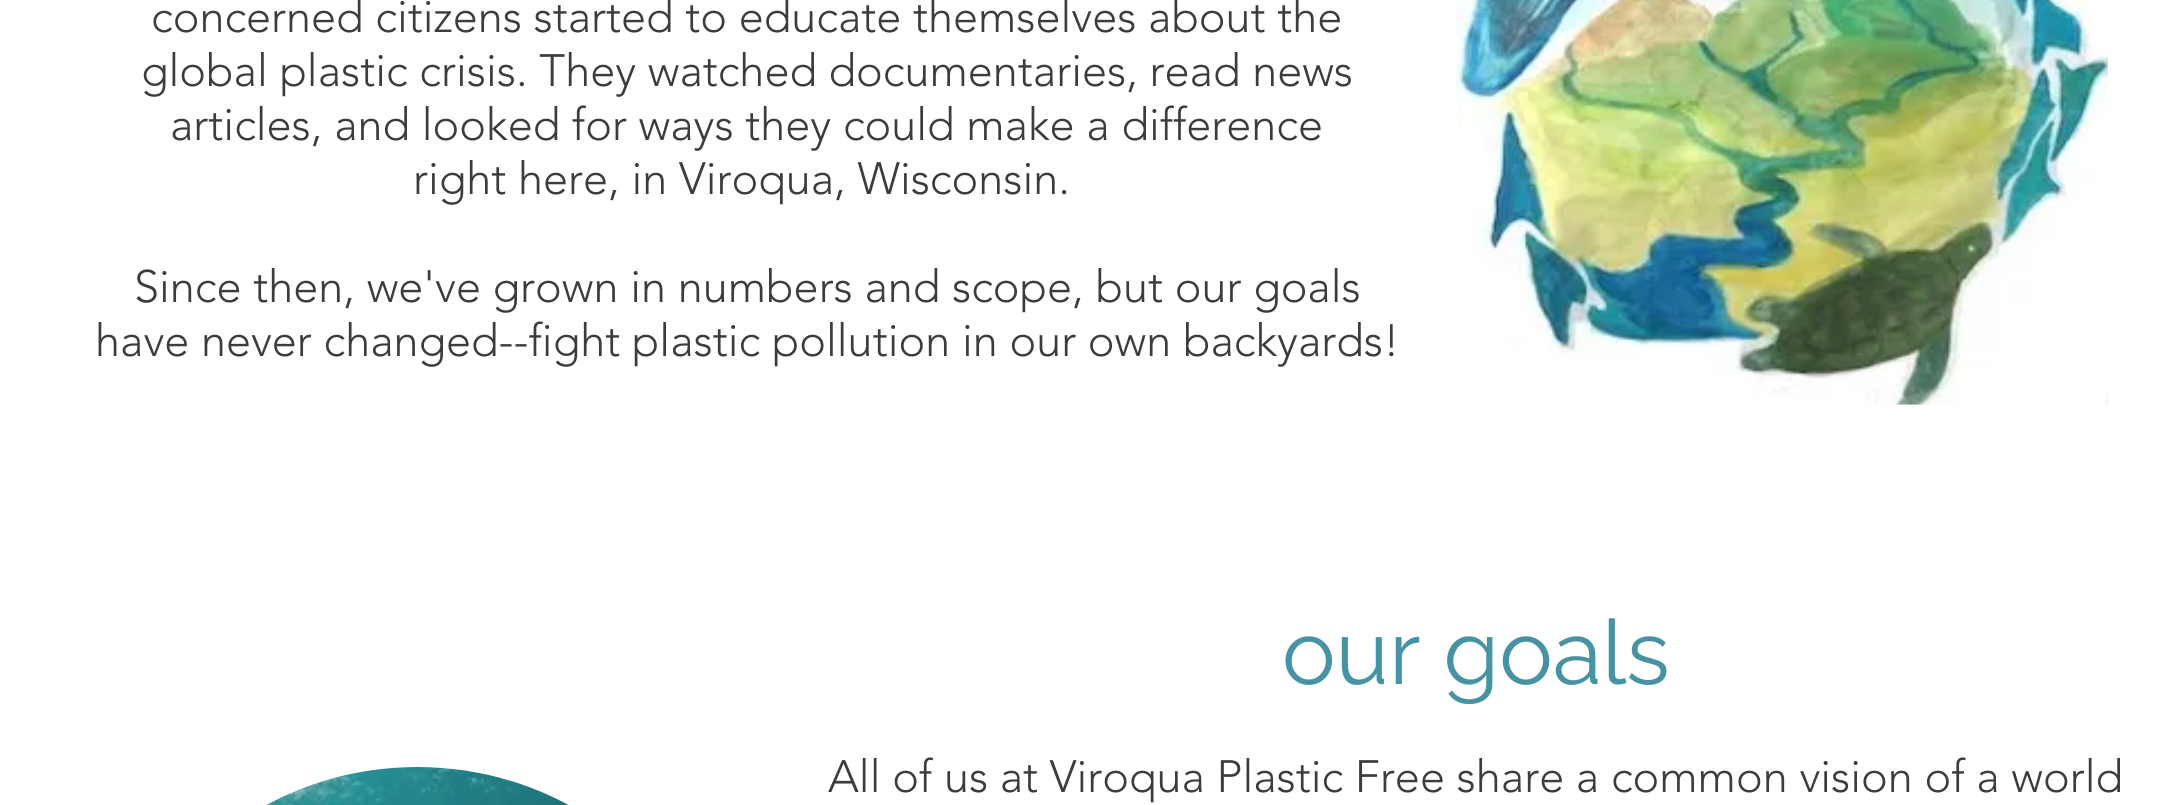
import math
import cairocffi as cairo

surface = cairo.ImageSurface(cairo.FORMAT_RGB24, 2171, 805)
cr = cairo.Context(surface)
options = cairo.FontOptions()
options.set_hint_metrics(cairo.HINT_METRICS_OFF)
options.set_hint_style(cairo.HINT_STYLE_NONE)
cr.set_font_options(options)
cr.set_miter_limit(4)


def use_color(code):
    cr.set_source_rgb(*(v / 255 for v in bytes.fromhex(code[-6:])))


def picture(path, x, y, w, h):
    cr.save()
    cr.set_source_surface(cairo.ImageSurface.create_from_png(path), x, y)
    cr.rectangle(x, y, w, h)
    cr.fill()
    cr.restore()


use_color("#ffffff")
cr.paint()
cr.select_font_face("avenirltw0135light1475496 Light")
cr.set_font_size(45)
use_color("#3c3c3c")
cr.move_to(151, 32)
cr.show_text("concerned citizens started to educate themselves about the")
cr.move_to(141, 86)
cr.show_text("global plastic crisis. They watched documentaries, read news")
cr.move_to(170, 140)
cr.show_text("articles, and looked for ways they could make a difference")
cr.move_to(413, 194)
cr.show_text("right here, in Viroqua, Wisconsin.")
cr.move_to(134, 302)
cr.show_text("Since then, we've grown in numbers and scope, but our goals")
cr.move_to(95, 356)
cr.show_text("have never changed--fight plastic pollution in our own backyards!")
picture("img1.png", 1456, 0, 653, 405)
cr.select_font_face("Raleway")
cr.set_font_size(90)
use_color("#4793a3")
cr.move_to(1282, 684)
cr.show_text("our goals")
picture("img2.png", 266, 767, 303, 38)
cr.select_font_face("avenirltw0135light1475496 Light")
cr.set_font_size(45)
use_color("#3c3c3c")
cr.move_to(828, 792)
cr.show_text("All of us at Viroqua Plastic Free share a common vision of a world")
surface.write_to_png("result.png")
